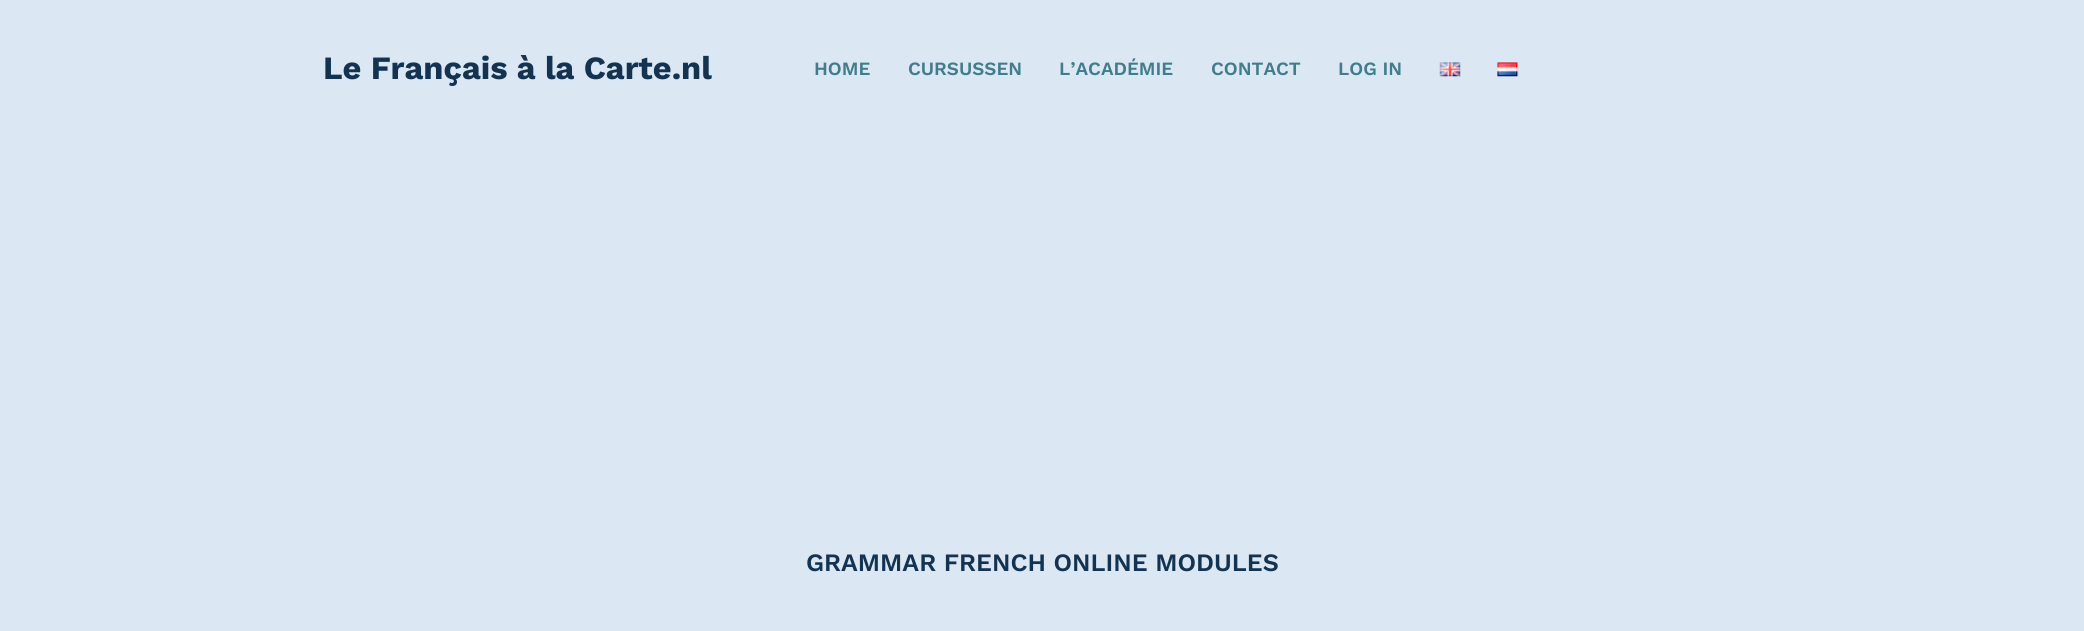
import math
import cairocffi as cairo

surface = cairo.ImageSurface(cairo.FORMAT_RGB24, 2084, 631)
cr = cairo.Context(surface)
options = cairo.FontOptions()
options.set_hint_metrics(cairo.HINT_METRICS_OFF)
options.set_hint_style(cairo.HINT_STYLE_NONE)
cr.set_font_options(options)
cr.set_miter_limit(4)


def use_color(code):
    cr.set_source_rgb(*(v / 255 for v in bytes.fromhex(code[-6:])))


def picture(path, x, y, w, h):
    cr.save()
    cr.set_source_surface(cairo.ImageSurface.create_from_png(path), x, y)
    cr.rectangle(x, y, w, h)
    cr.fill()
    cr.restore()


use_color("#dbe7f3")
cr.paint()
cr.select_font_face("Work Sans", cairo.FONT_SLANT_NORMAL, cairo.FONT_WEIGHT_BOLD)
cr.set_font_size(32.5)
use_color("#123452")
cr.move_to(323, 79)
cr.show_text("Le Français à la Carte.nl")
cr.select_font_face("Work Sans SemiBold")
cr.set_font_size(18.75)
use_color("#407d8c")
cr.move_to(814, 75)
cr.show_text("HOME")
cr.move_to(908, 75)
cr.show_text("CURSUSSEN")
cr.move_to(1059, 75)
cr.show_text("L’ACADÉMIE")
cr.move_to(1211, 75)
cr.show_text("CONTACT")
cr.move_to(1338, 75)
cr.show_text("LOG IN")
picture("img1.png", 1439, 62, 22, 15)
picture("img2.png", 1497, 62, 22, 15)
cr.set_font_size(25)
use_color("#123452")
cr.move_to(806, 571)
cr.show_text("GRAMMAR FRENCH ONLINE MODULES")
surface.write_to_png("result.png")
